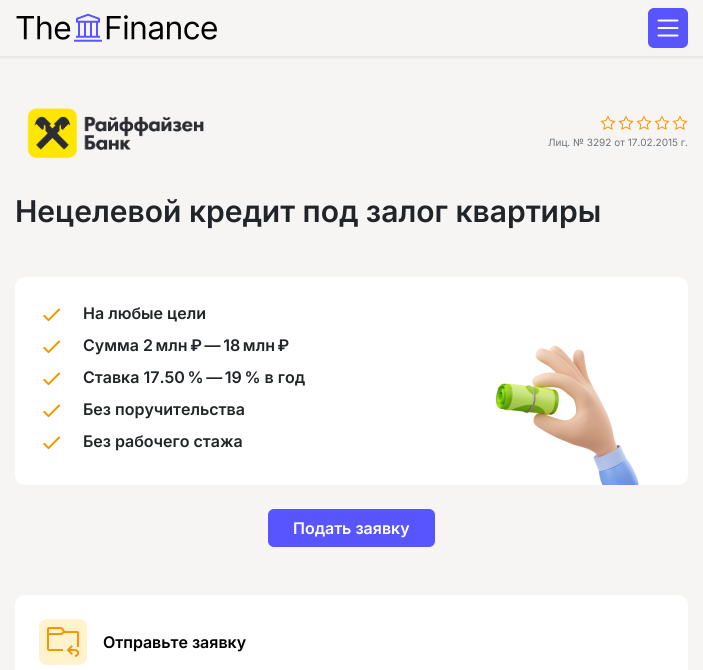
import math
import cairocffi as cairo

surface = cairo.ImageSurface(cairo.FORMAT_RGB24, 703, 670)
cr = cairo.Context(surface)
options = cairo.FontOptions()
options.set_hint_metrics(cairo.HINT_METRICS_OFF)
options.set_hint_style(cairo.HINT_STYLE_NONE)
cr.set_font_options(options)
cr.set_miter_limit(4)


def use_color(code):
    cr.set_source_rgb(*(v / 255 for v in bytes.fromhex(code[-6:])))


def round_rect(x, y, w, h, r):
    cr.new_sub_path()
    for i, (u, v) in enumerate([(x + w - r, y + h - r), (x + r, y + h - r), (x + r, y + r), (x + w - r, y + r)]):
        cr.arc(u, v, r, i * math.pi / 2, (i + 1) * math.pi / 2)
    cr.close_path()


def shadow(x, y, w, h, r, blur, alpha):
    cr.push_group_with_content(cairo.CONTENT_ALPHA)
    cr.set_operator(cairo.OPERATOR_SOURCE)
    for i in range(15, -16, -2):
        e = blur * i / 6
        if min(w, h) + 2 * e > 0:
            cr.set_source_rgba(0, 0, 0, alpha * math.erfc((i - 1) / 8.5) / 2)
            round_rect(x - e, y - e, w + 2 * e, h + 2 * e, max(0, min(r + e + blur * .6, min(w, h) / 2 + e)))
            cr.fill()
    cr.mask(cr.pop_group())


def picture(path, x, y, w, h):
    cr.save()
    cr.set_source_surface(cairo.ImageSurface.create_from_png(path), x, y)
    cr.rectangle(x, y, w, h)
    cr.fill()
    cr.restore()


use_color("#f6f5f4")
cr.paint()
cr.save()
cr.rectangle(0, 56, 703, 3)
cr.clip()
use_color("#000000")
shadow(0, 2, 703, 56, 0, 2, 0.07)
cr.restore()
picture("img1.png", 16, 13, 201, 29)
use_color("#5855ff")
round_rect(648.5, 8.5, 39, 39, 5.5)
cr.fill_preserve()
cr.set_line_width(1)
cr.stroke()
cr.new_path()
cr.move_to(658.5, 20.5)
cr.line_to(677.5, 20.5)
cr.move_to(658.5, 28)
cr.line_to(677.5, 28)
cr.move_to(658.5, 35.5)
cr.line_to(677.5, 35.5)
use_color("#ffffff")
cr.set_line_width(2)
cr.set_line_cap(cairo.LINE_CAP_ROUND)
cr.set_line_join(cairo.LINE_JOIN_ROUND)
cr.stroke()
picture("img2.png", 27, 108, 177, 50)
picture("img3.png", 600, 115, 16, 16)
picture("img3.png", 618, 115, 16, 16)
picture("img3.png", 636, 115, 16, 16)
picture("img3.png", 654, 115, 16, 16)
picture("img3.png", 672, 115, 16, 16)
cr.select_font_face("Inter")
cr.set_font_size(10)
use_color("#6c757d")
cr.move_to(548, 146)
cr.show_text("Лиц. № 3292 от 17.02.2015 г.")
cr.select_font_face("Inter SemiBold")
cr.set_font_size(30)
use_color("#212529")
cr.move_to(15, 222)
cr.show_text("Нецелевой кредит под залог квартиры")
use_color("#ffffff")
round_rect(15, 277, 673, 208, 10)
cr.fill()
picture("img4.png", 495, 345, 144, 140)
picture("img5.png", 43, 308, 18, 14)
cr.set_font_size(16)
use_color("#212529")
cr.move_to(83, 319)
cr.show_text("На любые цели")
picture("img5.png", 43, 340, 18, 14)
cr.move_to(83, 351)
cr.show_text("Сумма 2 млн ₽ — 18 млн ₽")
picture("img5.png", 43, 372, 18, 14)
cr.move_to(83, 383)
cr.show_text("Ставка 17.50 % — 19 % в год")
picture("img5.png", 43, 404, 18, 14)
cr.move_to(83, 415)
cr.show_text("Без поручительства")
picture("img5.png", 43, 436, 18, 14)
cr.move_to(83, 447)
cr.show_text("Без рабочего стажа")
use_color("#5855ff")
round_rect(268.5, 509.5, 166, 37, 5.5)
cr.fill_preserve()
cr.set_line_width(1)
cr.set_line_cap(cairo.LINE_CAP_BUTT)
cr.set_line_join(cairo.LINE_JOIN_MITER)
cr.stroke()
use_color("#ffffff")
cr.move_to(293, 534)
cr.show_text("Подать заявку")
round_rect(15, 595, 673, 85, 10)
cr.fill()
use_color("#fff3cd")
round_rect(39, 619, 48, 46, 8)
cr.fill()
picture("img6.png", 47, 627, 32, 30)
use_color("#000000")
cr.move_to(103, 648)
cr.show_text("Отправьте заявку")
surface.write_to_png("result.png")
